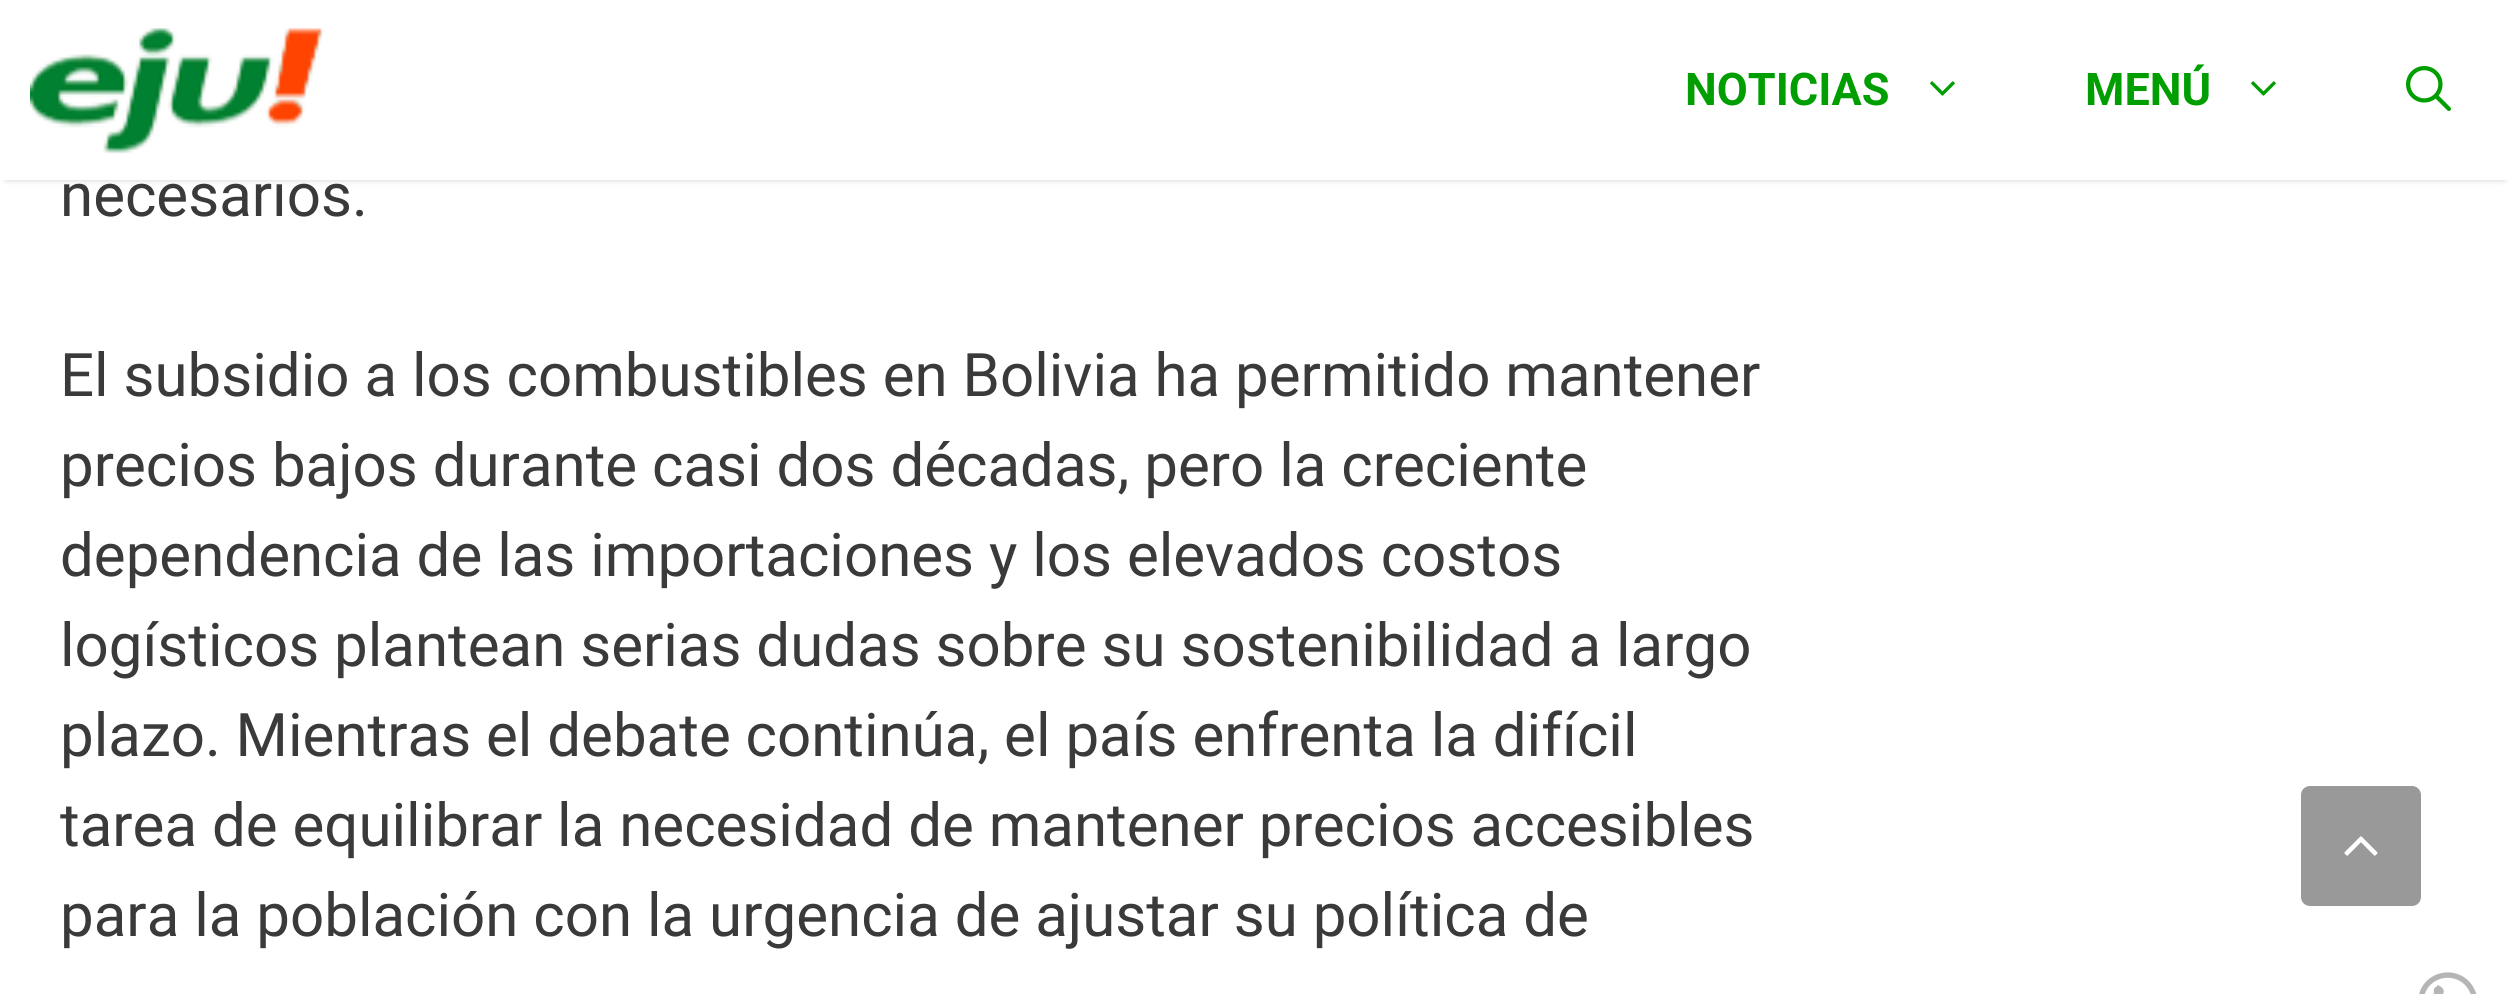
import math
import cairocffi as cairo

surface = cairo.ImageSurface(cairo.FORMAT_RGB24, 2511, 994)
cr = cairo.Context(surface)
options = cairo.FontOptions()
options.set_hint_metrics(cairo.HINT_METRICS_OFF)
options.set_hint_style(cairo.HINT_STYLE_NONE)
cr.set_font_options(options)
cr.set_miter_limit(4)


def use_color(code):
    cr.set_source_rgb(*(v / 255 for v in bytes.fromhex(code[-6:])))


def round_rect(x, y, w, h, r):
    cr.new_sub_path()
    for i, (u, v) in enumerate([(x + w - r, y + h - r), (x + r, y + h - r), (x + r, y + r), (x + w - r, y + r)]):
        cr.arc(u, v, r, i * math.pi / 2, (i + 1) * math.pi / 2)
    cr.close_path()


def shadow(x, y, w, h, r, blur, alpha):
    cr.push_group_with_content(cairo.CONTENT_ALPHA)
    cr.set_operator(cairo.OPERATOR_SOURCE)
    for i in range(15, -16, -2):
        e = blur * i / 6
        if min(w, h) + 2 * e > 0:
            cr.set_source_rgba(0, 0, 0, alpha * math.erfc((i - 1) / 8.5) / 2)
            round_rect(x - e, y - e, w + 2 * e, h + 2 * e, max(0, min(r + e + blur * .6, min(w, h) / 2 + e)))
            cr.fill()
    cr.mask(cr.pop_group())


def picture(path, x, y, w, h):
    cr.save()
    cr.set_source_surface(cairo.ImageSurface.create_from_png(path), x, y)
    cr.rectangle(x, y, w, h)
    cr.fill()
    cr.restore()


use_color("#ffffff")
cr.paint()
use_color("#000000")
shadow(6, 12, 2499, 168, 0, 3, 0.2)
cr.select_font_face("Roboto")
cr.set_font_size(60)
use_color("#3a3a3a")
cr.move_to(60, 216)
cr.show_text("necesarios.")
use_color("#ffffff")
cr.rectangle(1, 7, 2509, 173)
cr.fill()
picture("img1.png", 30, 28, 293, 126)
cr.select_font_face("Roboto", cairo.FONT_SLANT_NORMAL, cairo.FONT_WEIGHT_BOLD)
cr.set_font_size(45)
use_color("#009e00")
cr.move_to(1685, 105)
cr.show_text("NOTICIAS")
picture("img2.png", 1930, 81, 25, 15)
cr.move_to(2085, 105)
cr.show_text("MENÚ")
picture("img2.png", 2251, 81, 25, 15)
picture("img3.png", 2406, 66, 45, 45)
cr.select_font_face("Roboto")
cr.set_font_size(60)
use_color("#3a3a3a")
cr.move_to(60, 396)
cr.show_text("El subsidio a los combustibles en Bolivia ha permitido mantener")
cr.move_to(60, 486)
cr.show_text("precios bajos durante casi dos décadas, pero la creciente")
cr.move_to(60, 576)
cr.show_text("dependencia de las importaciones y los elevados costos")
cr.move_to(60, 666)
cr.show_text("logísticos plantean serias dudas sobre su sostenibilidad a largo")
cr.move_to(60, 756)
cr.show_text("plazo. Mientras el debate continúa, el país enfrenta la difícil")
cr.move_to(60, 846)
cr.show_text("tarea de equilibrar la necesidad de mantener precios accesibles")
cr.move_to(60, 936)
cr.show_text("para la población con la urgencia de ajustar su política de")
cr.new_path()
cr.move_to(2438.5, 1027.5)
cr.curve_to(2451, 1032, 2465, 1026.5, 2471.5, 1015)
cr.curve_to(2478, 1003.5, 2474.5, 988.5, 2464, 980.5)
cr.curve_to(2453.5, 972.5, 2438.5, 973.5, 2429, 982.5)
cr.curve_to(2419.5, 991.5, 2418, 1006.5, 2425.5, 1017.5)
use_color("#b5b5b5")
cr.set_line_width(5.4)
cr.stroke()
cr.new_path()
cr.move_to(2434, 988.5)
cr.curve_to(2432.5, 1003, 2439.5, 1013, 2456, 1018)
cr.curve_to(2469.5, 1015.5, 2456, 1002, 2453, 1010)
cr.curve_to(2446, 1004.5, 2441.5, 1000, 2439.5, 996.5)
cr.curve_to(2450.5, 991, 2437, 983, 2437, 986)
cr.fill()
use_color("#999999")
round_rect(2301, 786, 120, 120, 9)
cr.fill()
picture("img4.png", 2344, 836, 34, 20)
surface.write_to_png("result.png")
